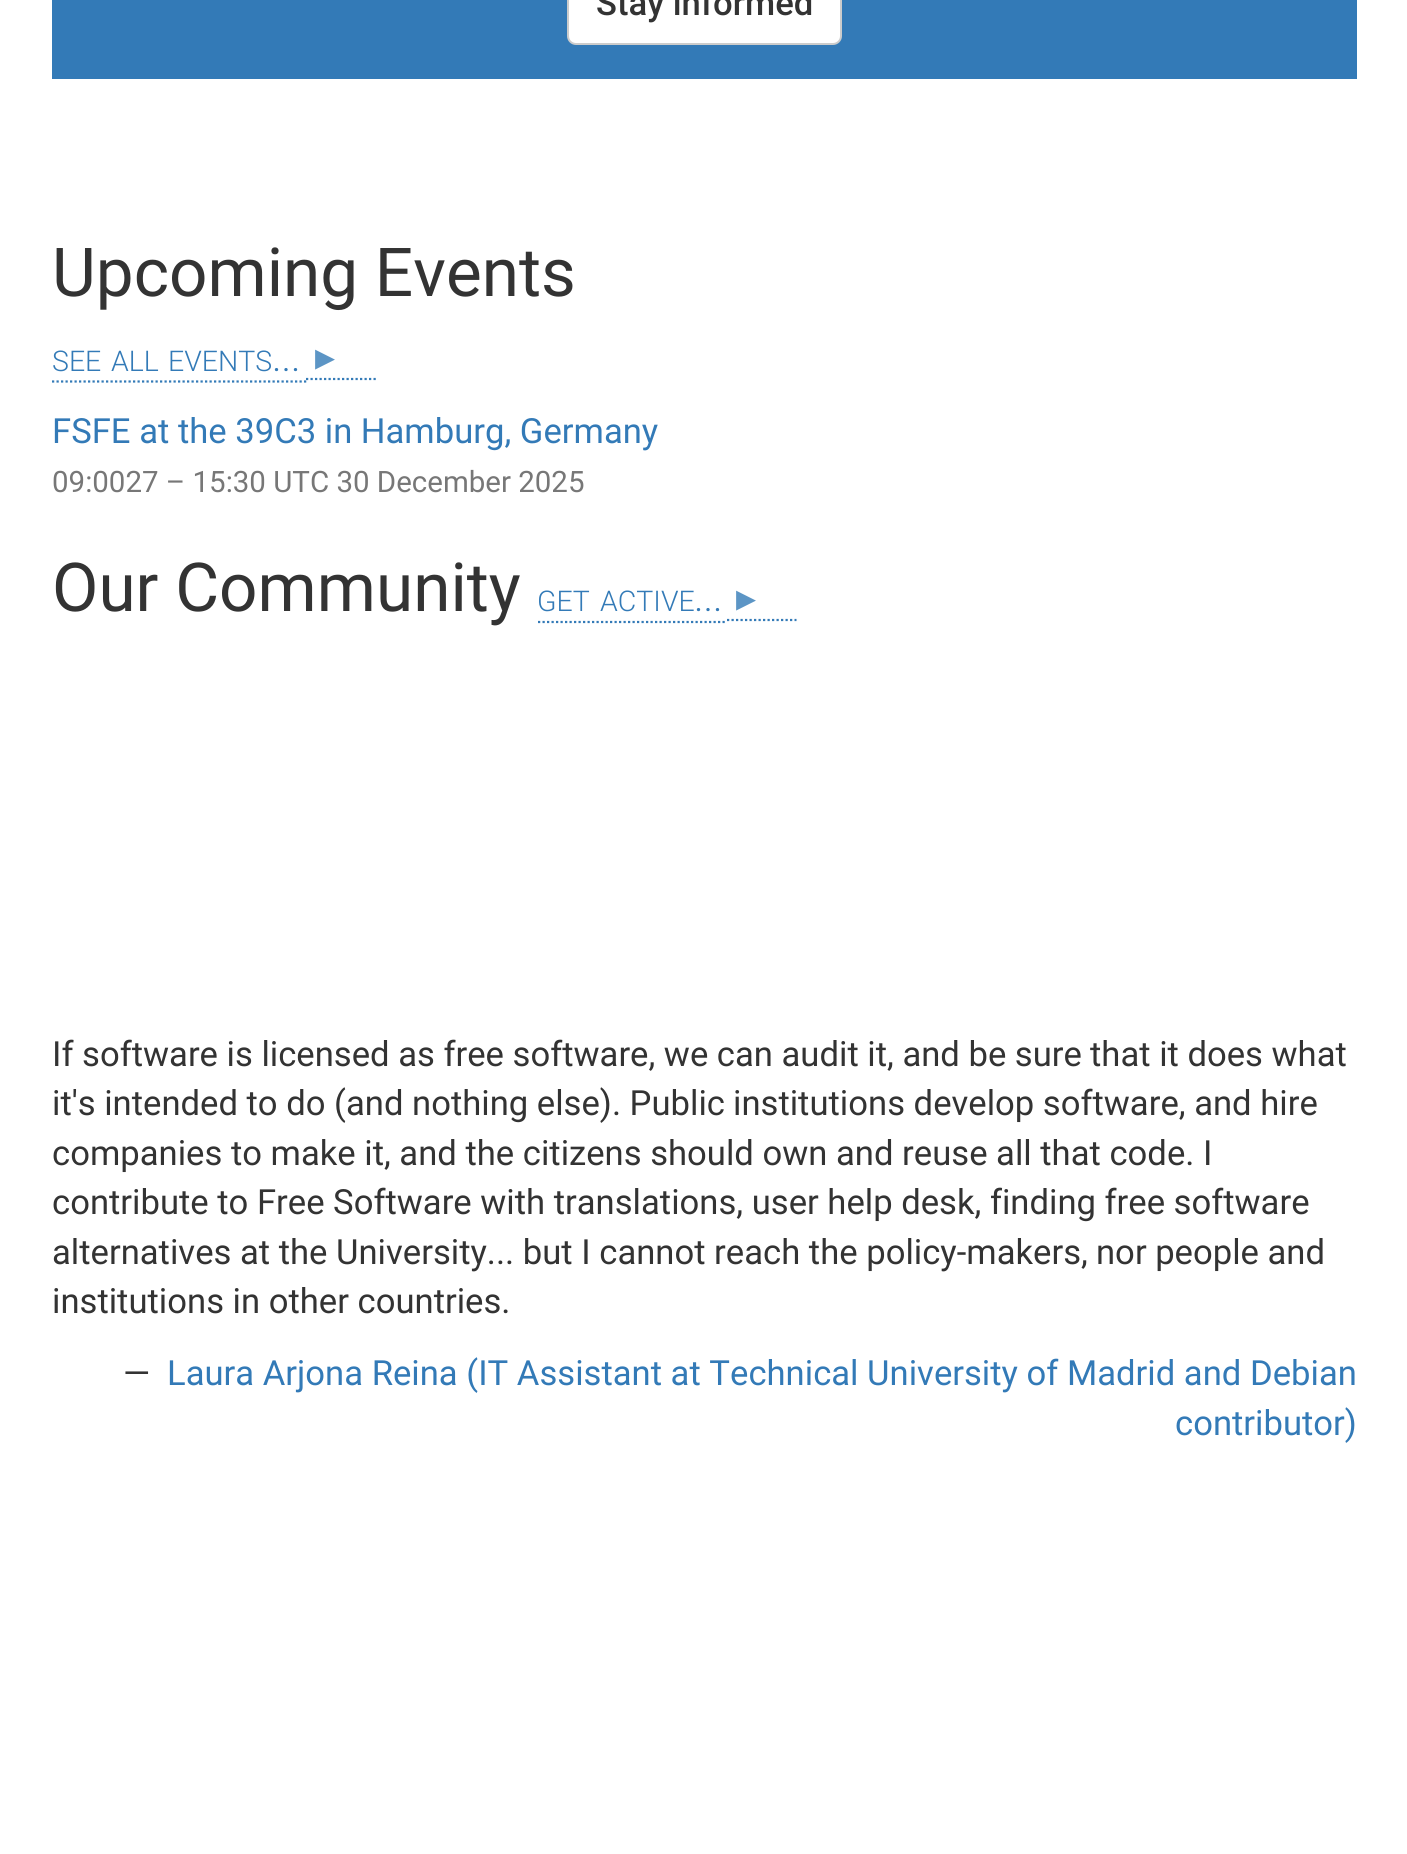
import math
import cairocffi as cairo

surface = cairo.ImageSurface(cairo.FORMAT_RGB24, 1407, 1854)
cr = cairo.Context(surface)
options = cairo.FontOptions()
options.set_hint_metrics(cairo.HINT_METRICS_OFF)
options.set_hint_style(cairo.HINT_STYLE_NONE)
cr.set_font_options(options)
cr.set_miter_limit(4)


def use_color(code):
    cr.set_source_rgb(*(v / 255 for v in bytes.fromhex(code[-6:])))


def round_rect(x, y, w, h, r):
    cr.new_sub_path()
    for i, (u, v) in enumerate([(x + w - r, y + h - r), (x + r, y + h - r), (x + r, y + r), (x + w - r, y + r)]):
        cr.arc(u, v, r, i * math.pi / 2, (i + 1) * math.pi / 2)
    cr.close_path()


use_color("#ffffff")
cr.paint()
use_color("#337ab7")
cr.rectangle(52, 0, 1305, 79)
cr.fill()
use_color("#ffffff")
round_rect(568, -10, 273, 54, 8)
cr.fill_preserve()
use_color("#cccccc")
cr.stroke()
cr.select_font_face("Roboto Medium")
cr.set_font_size(34.65)
use_color("#333333")
cr.move_to(596, 15)
cr.show_text("Stay informed")
cr.select_font_face("Roboto")
cr.set_font_size(67.5)
cr.move_to(52, 296)
cr.show_text("Upcoming Events")
cr.new_path()
cr.move_to(52, 381.5)
cr.line_to(308, 381.5)
use_color("#337ab7")
cr.set_line_width(2.2)
cr.set_dash([2.25, 2.25])
cr.stroke()
cr.new_path()
cr.move_to(306, 379)
cr.line_to(376, 379)
cr.stroke()
cr.select_font_face("Roboto Light")
cr.set_font_size(28.5)
cr.move_to(52, 371)
cr.show_text("SEE")
cr.move_to(111, 371)
cr.show_text("ALL")
cr.move_to(168, 371)
cr.show_text("EVENTS")
cr.set_font_size(40)
cr.move_to(272, 371)
cr.show_text("...")
cr.select_font_face("DejaVu Sans")
use_color("#5c95c5")
cr.move_to(315, 370)
cr.show_text("▸")
cr.select_font_face("Roboto")
cr.set_font_size(34.65)
use_color("#337ab7")
cr.move_to(52, 443)
cr.show_text("FSFE at the 39C3 in Hamburg, Germany")
cr.set_font_size(29.5)
use_color("#777777")
cr.move_to(52, 492)
cr.show_text("09:0027 – 15:30 UTC 30 December 2025")
cr.set_font_size(67.5)
use_color("#333333")
cr.move_to(52, 611)
cr.show_text("Our Community")
cr.new_path()
cr.move_to(538, 622)
cr.line_to(727, 622)
use_color("#337ab7")
cr.stroke()
cr.new_path()
cr.move_to(727, 620)
cr.line_to(796.5, 620)
cr.stroke()
cr.select_font_face("Roboto Light")
cr.set_font_size(28.5)
cr.move_to(537, 611)
cr.show_text("GET")
cr.move_to(600, 611)
cr.show_text("ACTIVE")
cr.set_font_size(40)
cr.move_to(694, 611)
cr.show_text("...")
cr.select_font_face("DejaVu Sans")
use_color("#5c95c5")
cr.move_to(736, 611)
cr.show_text("▸")
cr.select_font_face("Roboto")
cr.set_font_size(34.65)
use_color("#333333")
cr.move_to(52, 1066)
cr.show_text("If software is licensed as free software, we can audit it, and be sure")
cr.move_to(1090, 1066)
cr.show_text("that it does what")
cr.move_to(52, 1115)
cr.show_text("it's intended to do (and nothing else). Public")
cr.move_to(733, 1115)
cr.show_text("institutions develop software, and hire")
cr.move_to(52, 1165)
cr.show_text("companies to make it, and the citizens should own and reuse all that code. I")
cr.move_to(52, 1214)
cr.show_text("contribute to Free Software with translations, user help desk, finding free software")
cr.move_to(52, 1264)
cr.show_text("alternatives at the University... but I cannot reach the policy-makers,")
cr.move_to(1096, 1264)
cr.show_text("nor people and")
cr.move_to(52, 1313)
cr.show_text("institutions in other countries.")
cr.move_to(123, 1385)
cr.show_text("—")
use_color("#337ab7")
cr.move_to(167, 1385)
cr.show_text("Laura Arjona Reina (IT Assistant at Technical University of Madrid and")
cr.move_to(1250, 1385)
cr.show_text("Debian")
cr.move_to(1175, 1435)
cr.show_text("contributor)")
surface.write_to_png("result.png")
